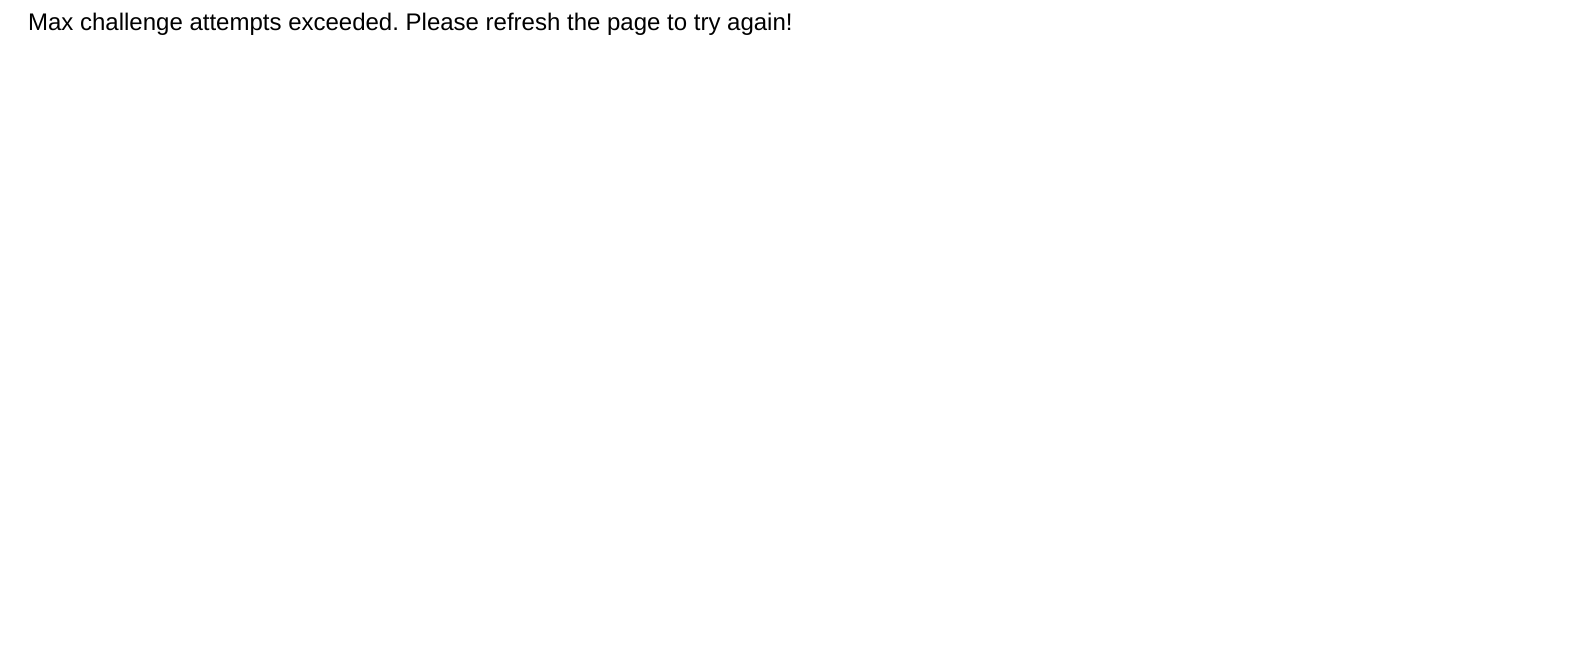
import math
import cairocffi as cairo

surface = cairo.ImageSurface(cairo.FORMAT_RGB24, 1582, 667)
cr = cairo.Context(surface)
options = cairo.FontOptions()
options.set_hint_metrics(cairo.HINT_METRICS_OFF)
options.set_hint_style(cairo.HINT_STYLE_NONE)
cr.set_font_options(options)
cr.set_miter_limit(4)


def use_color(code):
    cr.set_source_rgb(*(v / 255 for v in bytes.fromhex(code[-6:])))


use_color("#ffffff")
cr.paint()
cr.select_font_face("Liberation Sans")
cr.set_font_size(24)
use_color("#000000")
cr.move_to(28, 30)
cr.show_text("Max challenge attempts exceeded. Please refresh the page to try again!")
surface.write_to_png("result.png")
